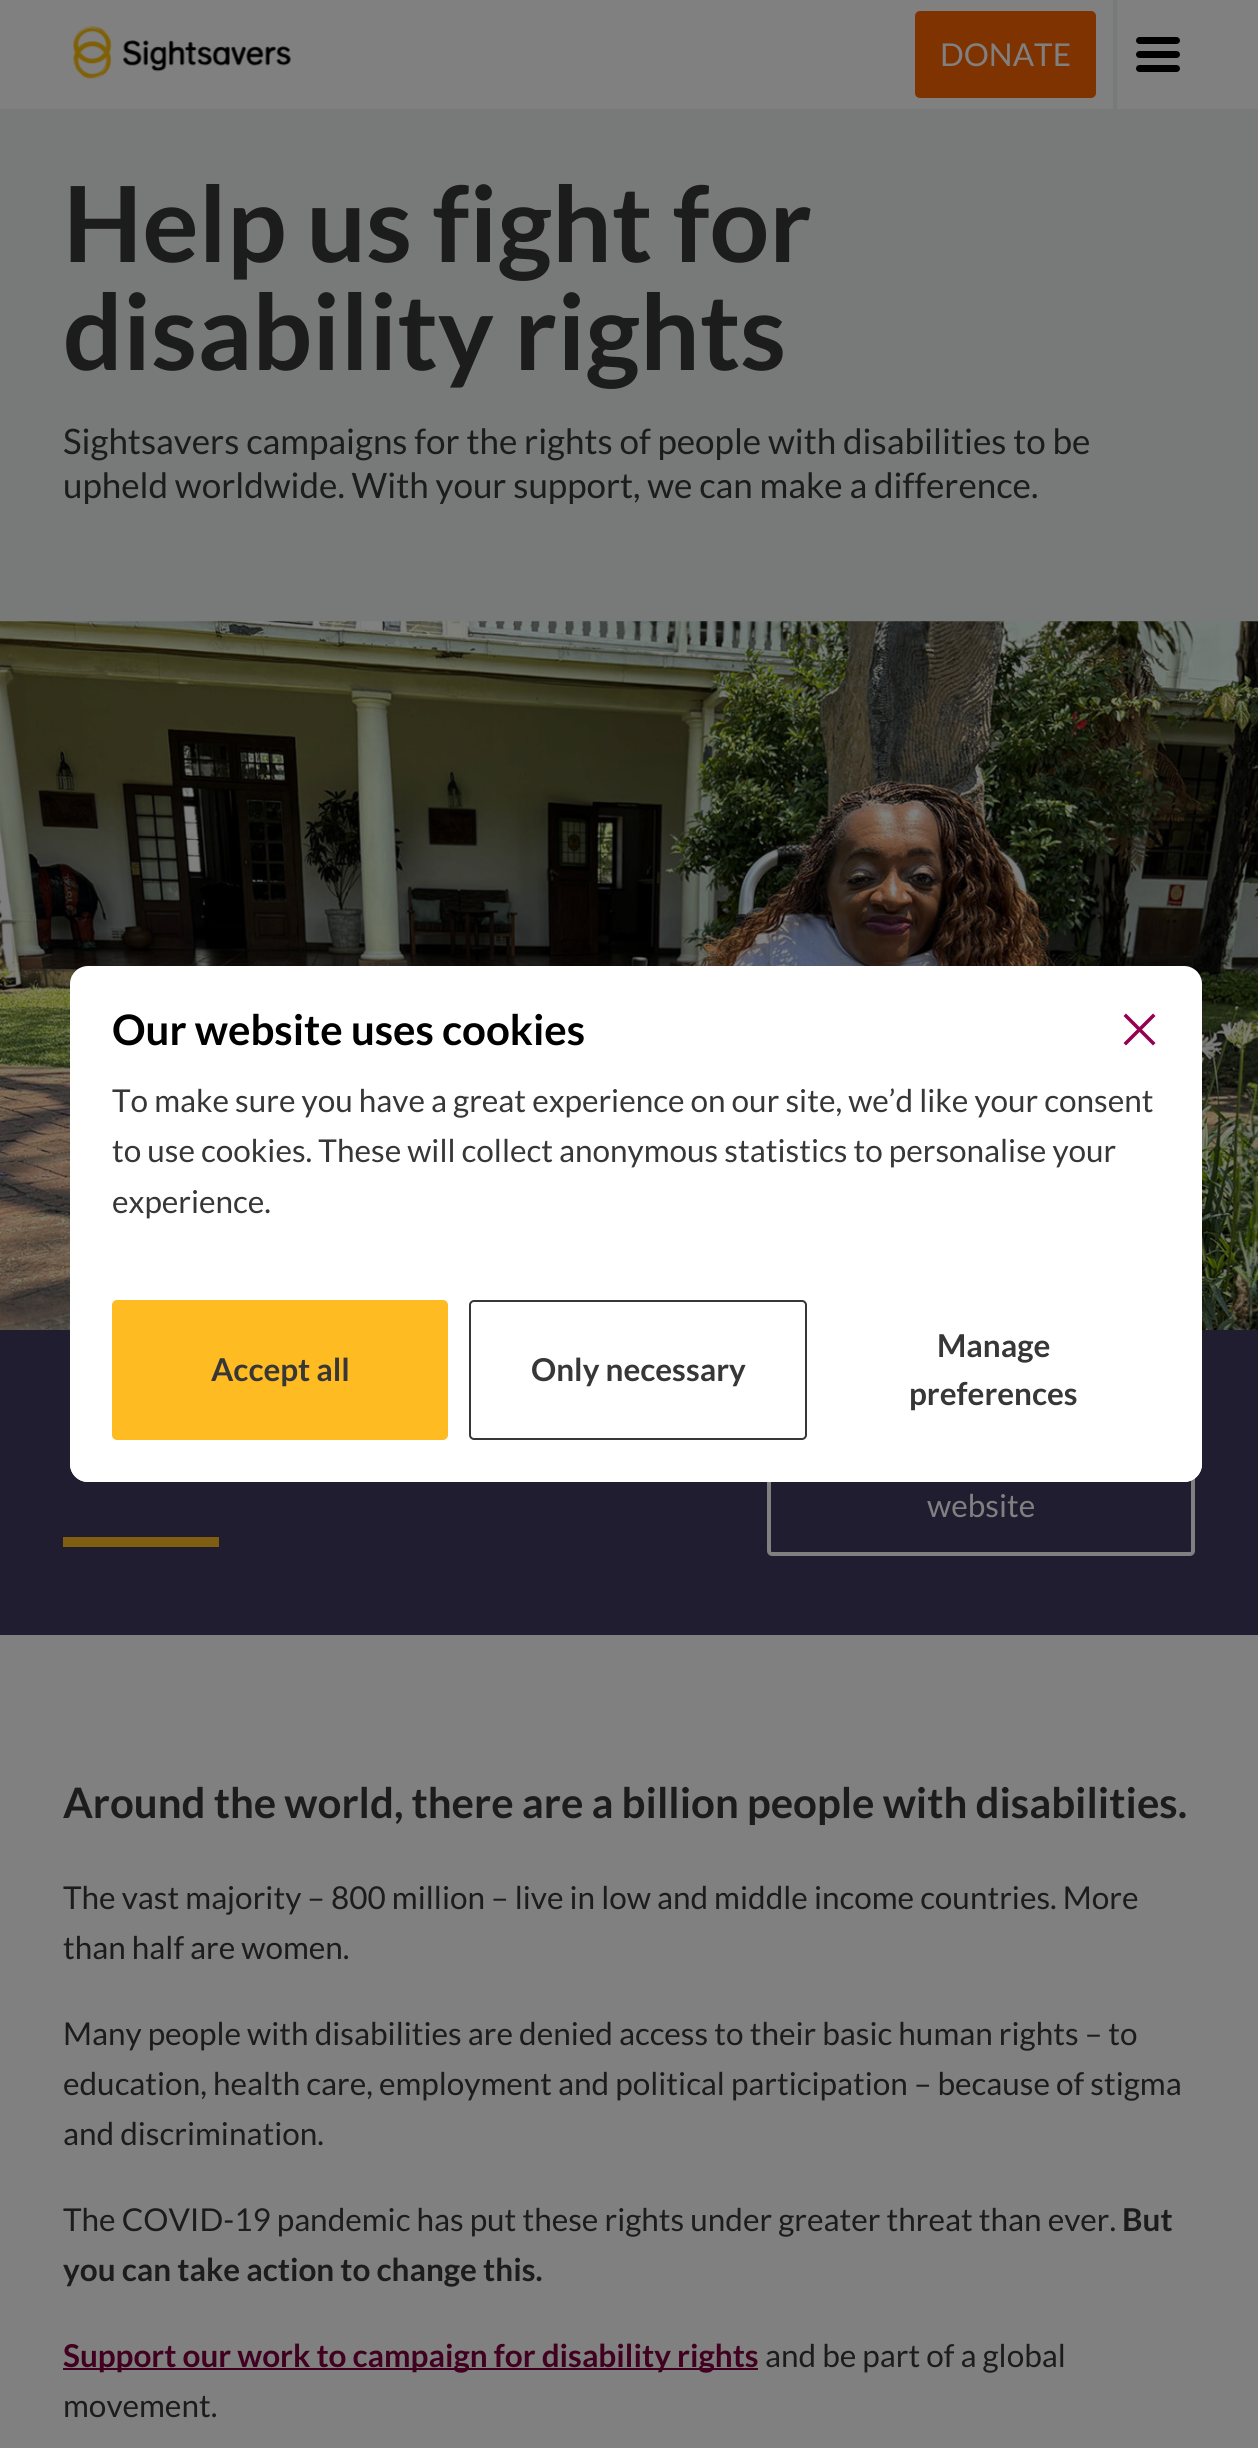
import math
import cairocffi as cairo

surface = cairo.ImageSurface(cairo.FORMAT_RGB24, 1258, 2448)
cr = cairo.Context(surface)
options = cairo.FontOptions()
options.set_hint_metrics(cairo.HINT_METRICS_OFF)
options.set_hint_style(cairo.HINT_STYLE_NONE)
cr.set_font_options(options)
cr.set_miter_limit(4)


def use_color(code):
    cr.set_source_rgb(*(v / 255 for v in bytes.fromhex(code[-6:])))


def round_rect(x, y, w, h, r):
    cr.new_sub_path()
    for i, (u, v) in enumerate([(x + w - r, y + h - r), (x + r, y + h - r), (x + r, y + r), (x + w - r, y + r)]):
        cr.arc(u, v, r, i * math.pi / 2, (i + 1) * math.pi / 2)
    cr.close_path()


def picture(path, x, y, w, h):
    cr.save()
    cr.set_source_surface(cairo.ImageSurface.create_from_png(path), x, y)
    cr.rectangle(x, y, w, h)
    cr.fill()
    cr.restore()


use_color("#808080")
cr.paint()
picture("img1.png", 73, 26, 218, 53)
use_color("#7e3300")
round_rect(915, 11, 181, 87, 5)
cr.fill()
cr.select_font_face("Lato")
cr.set_font_size(31.5)
use_color("#808080")
cr.move_to(940, 66)
cr.show_text("DONATE")
use_color("#787979")
cr.rectangle(1113, 0, 4, 109)
cr.fill()
use_color("#000000")
round_rect(1136, 51, 44, 7, 3.5)
cr.fill()
round_rect(1136, 37, 44, 7, 3.5)
cr.fill()
round_rect(1136, 65, 44, 7, 3.5)
cr.fill()
use_color("#787979")
cr.rectangle(0, 109, 1258, 513)
cr.fill()
cr.select_font_face("Lato", cairo.FONT_SLANT_NORMAL, cairo.FONT_WEIGHT_BOLD)
cr.set_font_size(105)
use_color("#1c1c1c")
cr.move_to(63, 262)
cr.show_text("Help us fight for")
cr.move_to(63, 370)
cr.show_text("disability rights")
cr.select_font_face("Lato")
cr.set_font_size(35)
cr.move_to(63, 454)
cr.show_text("Sightsavers campaigns for the rights of people with disabilities to be")
cr.move_to(63, 498)
cr.show_text("upheld worldwide. With your support, we can make a difference.")
picture("img2.png", 0, 621, 1258, 709)
use_color("#201d30")
cr.rectangle(0, 1330, 1258, 305)
cr.fill()
round_rect(769, 1411, 424, 143, 3)
use_color("#808080")
cr.set_line_width(4)
cr.stroke()
cr.set_font_size(31.5)
cr.move_to(927, 1517)
cr.show_text("website")
use_color("#805e11")
cr.rectangle(63, 1537, 156, 10)
cr.fill()
cr.select_font_face("Lato", cairo.FONT_SLANT_NORMAL, cairo.FONT_WEIGHT_BOLD)
cr.set_font_size(42)
use_color("#1c1c1c")
cr.move_to(63, 1818)
cr.show_text("Around the world, there are a billion people with disabilities.")
cr.select_font_face("Lato")
cr.set_font_size(31.5)
cr.move_to(63, 1909)
cr.show_text("The vast majority – 800 million – live in low and middle income countries. More")
cr.move_to(63, 1959)
cr.show_text("than half are women.")
cr.move_to(63, 2045)
cr.show_text("Many people with disabilities are denied access to their basic human rights – to")
cr.move_to(63, 2095)
cr.show_text("education, health care, employment and political participation – because of stigma")
cr.move_to(63, 2145)
cr.show_text("and discrimination.")
cr.move_to(63, 2231)
cr.show_text("The COVID-19 pandemic has put these rights under greater threat than ever.")
cr.select_font_face("Lato", cairo.FONT_SLANT_NORMAL, cairo.FONT_WEIGHT_BOLD)
cr.move_to(1122, 2231)
cr.show_text("But")
cr.move_to(63, 2281)
cr.show_text("you can take action to change this.")
use_color("#410020")
cr.rectangle(63, 2368, 695, 2)
cr.fill()
cr.move_to(63, 2367)
cr.show_text("Support our work to campaign for disability rights")
cr.select_font_face("Lato")
use_color("#1c1c1c")
cr.move_to(765, 2367)
cr.show_text("and be part of a global")
cr.move_to(63, 2417)
cr.show_text("movement.")
use_color("#ffffff")
round_rect(70, 966, 1132, 516, 18)
cr.fill()
cr.select_font_face("Lato", cairo.FONT_SLANT_NORMAL, cairo.FONT_WEIGHT_BOLD)
cr.set_font_size(42)
use_color("#000000")
cr.move_to(112, 1045)
cr.show_text("Our website uses cookies")
use_color("#960051")
cr.new_path()
cr.move_to(1126, 1013.5)
cr.line_to(1155.5, 1043)
cr.line_to(1153, 1045.5)
cr.line_to(1123.5, 1016)
cr.close_path()
cr.fill()
cr.new_path()
cr.move_to(1155.5, 1016)
cr.line_to(1126, 1045.5)
cr.line_to(1123.5, 1043)
cr.line_to(1153, 1013.5)
cr.close_path()
cr.fill()
cr.select_font_face("Lato")
cr.set_font_size(31.5)
use_color("#373737")
cr.move_to(112, 1112)
cr.show_text("To make sure you have a great experience on our site, we’d like your consent")
cr.move_to(112, 1162)
cr.show_text("to use cookies. These will collect anonymous statistics to personalise your")
cr.move_to(112, 1213)
cr.show_text("experience.")
use_color("#ffffff")
round_rect(70, 1258, 1132, 224, 18)
cr.fill()
use_color("#ffbb22")
round_rect(113, 1301, 334, 138, 4)
cr.fill_preserve()
cr.set_line_width(2)
cr.stroke()
cr.select_font_face("Lato", cairo.FONT_SLANT_NORMAL, cairo.FONT_WEIGHT_BOLD)
use_color("#373737")
cr.move_to(211, 1381)
cr.show_text("Accept all")
round_rect(470, 1301, 336, 138, 4)
cr.stroke()
cr.move_to(531, 1381)
cr.show_text("Only necessary")
cr.move_to(937, 1357)
cr.show_text("Manage")
cr.move_to(909, 1405)
cr.show_text("preferences")
surface.write_to_png("result.png")
